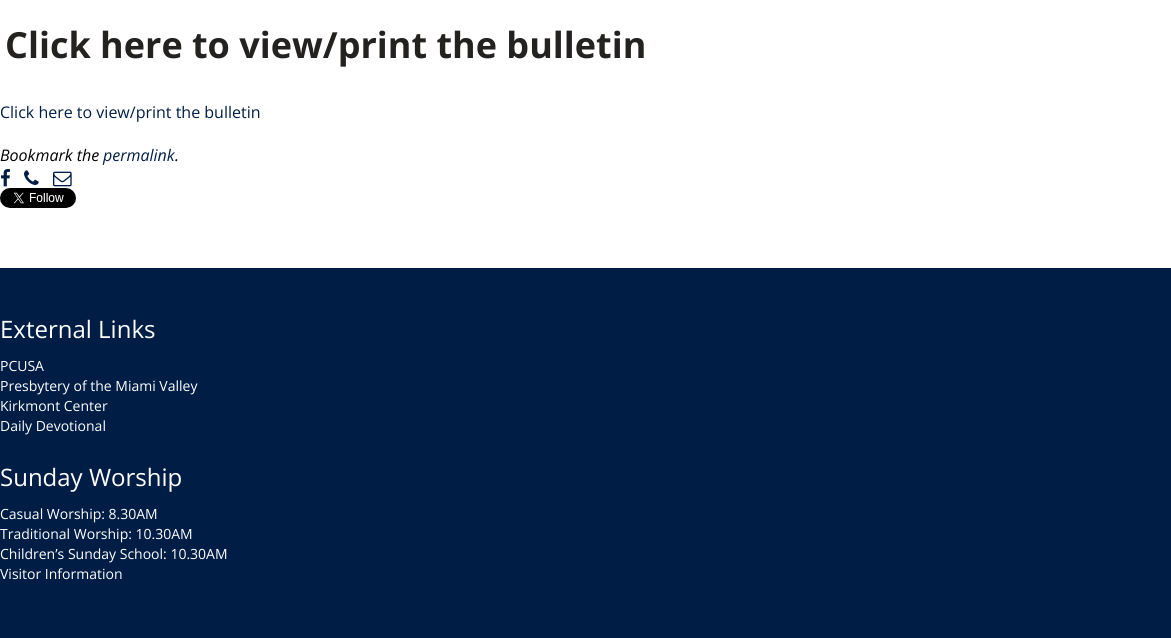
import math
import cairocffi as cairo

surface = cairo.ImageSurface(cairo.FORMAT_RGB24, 1171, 638)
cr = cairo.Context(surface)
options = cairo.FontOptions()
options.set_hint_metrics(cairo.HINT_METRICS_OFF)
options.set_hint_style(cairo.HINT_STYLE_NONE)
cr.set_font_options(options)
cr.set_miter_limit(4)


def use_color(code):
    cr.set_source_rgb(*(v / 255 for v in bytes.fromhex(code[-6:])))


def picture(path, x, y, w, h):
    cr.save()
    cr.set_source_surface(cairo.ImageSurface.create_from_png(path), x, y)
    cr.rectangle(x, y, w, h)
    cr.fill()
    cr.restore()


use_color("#ffffff")
cr.paint()
cr.select_font_face("Open Sans", cairo.FONT_SLANT_NORMAL, cairo.FONT_WEIGHT_BOLD)
cr.set_font_size(36)
use_color("#242221")
cr.move_to(5, 58)
cr.show_text("Click here to view/print the bulletin")
cr.select_font_face("Open Sans")
cr.set_font_size(16)
use_color("#001d45")
cr.move_to(0, 118)
cr.show_text("Click here to view/print the bulletin")
cr.select_font_face("Open Sans", cairo.FONT_SLANT_ITALIC)
use_color("#000000")
cr.move_to(0, 161)
cr.show_text("Bookmark the")
cr.move_to(175, 161)
cr.show_text(".")
use_color("#001d45")
cr.move_to(103, 161)
cr.show_text("permalink")
picture("img1.png", 1, 169, 9, 18)
picture("img2.png", 24, 170, 15, 15)
picture("img3.png", 53, 171, 19, 16)
picture("img4.png", 0, 188, 76, 20)
cr.rectangle(0, 268, 1171, 370)
cr.fill()
cr.select_font_face("Open Sans")
cr.set_font_size(24)
use_color("#ffffff")
cr.move_to(0, 338)
cr.show_text("External Links")
cr.set_font_size(14)
cr.move_to(0, 371)
cr.show_text("PCUSA")
cr.move_to(0, 391)
cr.show_text("Presbytery of the Miami Valley")
cr.move_to(0, 411)
cr.show_text("Kirkmont Center")
cr.move_to(0, 431)
cr.show_text("Daily Devotional")
cr.set_font_size(24)
cr.move_to(0, 486)
cr.show_text("Sunday Worship")
cr.set_font_size(14)
cr.move_to(0, 519)
cr.show_text("Casual Worship: 8.30AM")
cr.move_to(0, 539)
cr.show_text("Traditional Worship: 10.30AM")
cr.move_to(0, 559)
cr.show_text("Children’s Sunday School: 10.30AM")
cr.move_to(0, 579)
cr.show_text("Visitor Information")
surface.write_to_png("result.png")
